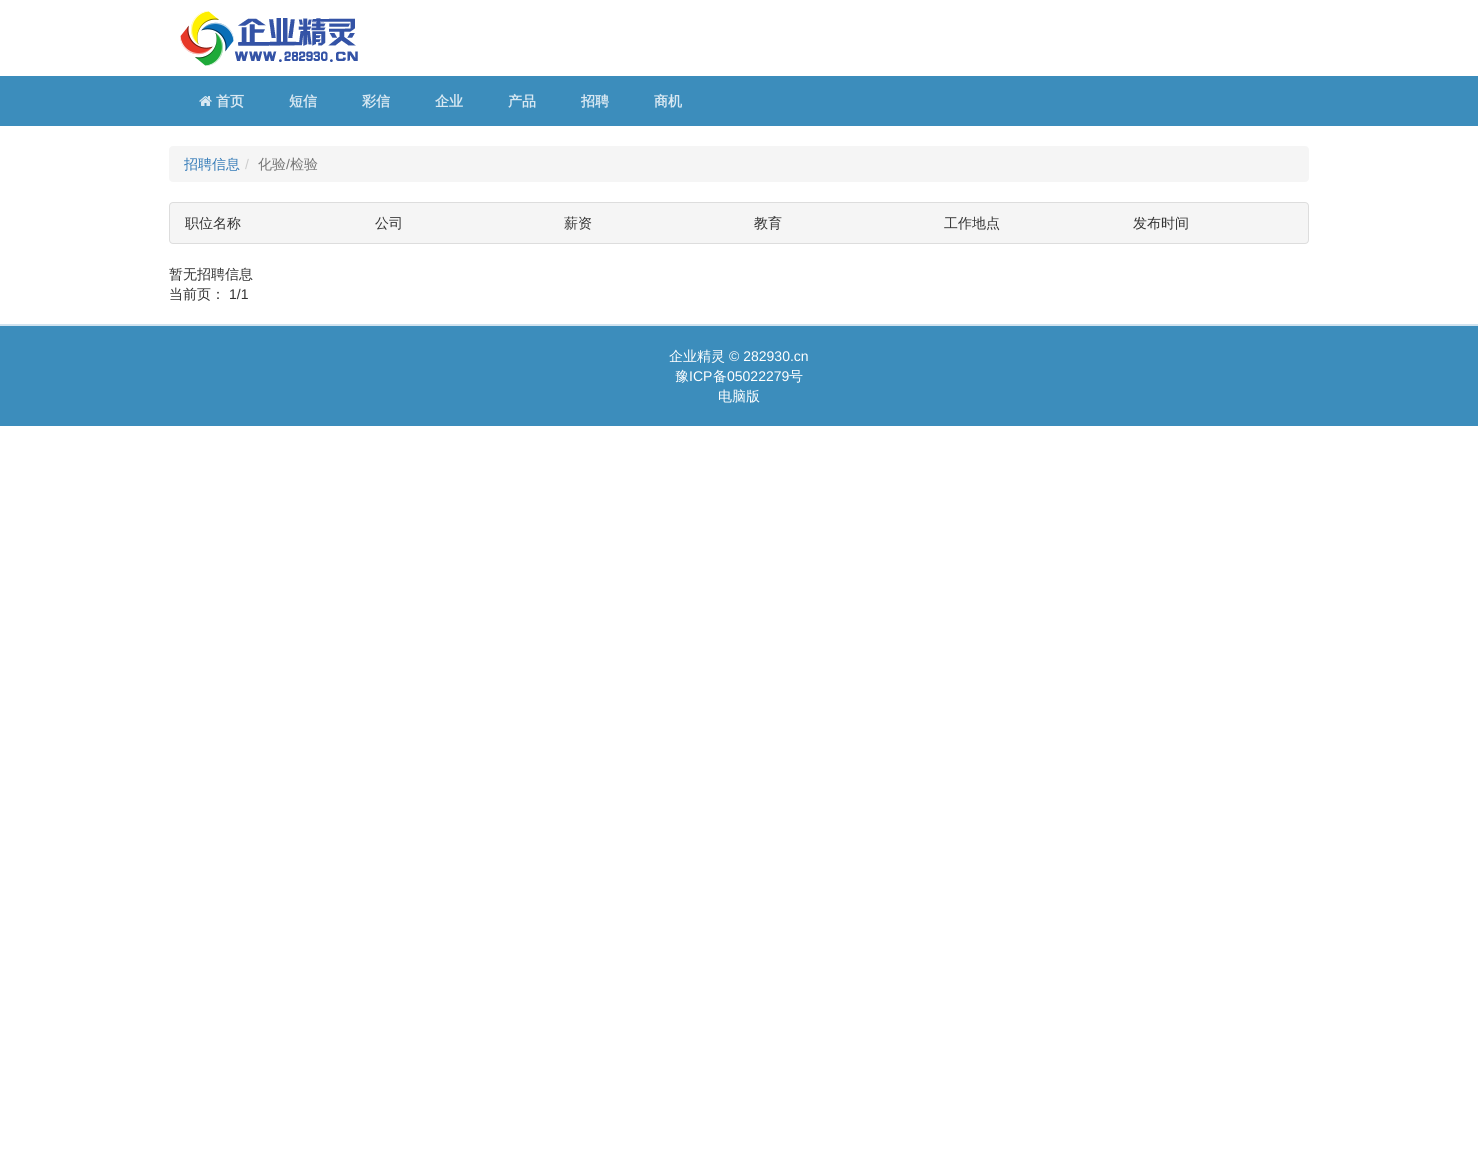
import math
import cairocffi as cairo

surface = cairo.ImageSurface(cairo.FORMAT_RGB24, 1478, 1175)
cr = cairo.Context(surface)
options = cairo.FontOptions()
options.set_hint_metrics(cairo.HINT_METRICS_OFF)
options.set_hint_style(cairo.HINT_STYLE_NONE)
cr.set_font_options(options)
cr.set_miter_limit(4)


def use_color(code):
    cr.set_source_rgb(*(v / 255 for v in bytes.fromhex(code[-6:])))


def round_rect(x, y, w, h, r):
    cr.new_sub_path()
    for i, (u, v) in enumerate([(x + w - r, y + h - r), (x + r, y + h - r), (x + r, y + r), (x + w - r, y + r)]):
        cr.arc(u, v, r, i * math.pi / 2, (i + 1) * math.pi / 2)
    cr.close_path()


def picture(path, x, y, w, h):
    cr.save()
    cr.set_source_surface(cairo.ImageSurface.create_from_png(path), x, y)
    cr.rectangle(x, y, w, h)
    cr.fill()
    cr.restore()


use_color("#ffffff")
cr.paint()
picture("img1.png", 180, 11, 178, 55)
use_color("#3c8dbc")
cr.rectangle(0, 76, 1478, 50)
cr.fill()
picture("img2.png", 199, 96, 13, 10)
cr.select_font_face("WenQuanYi Zen Hei", cairo.FONT_SLANT_NORMAL, cairo.FONT_WEIGHT_BOLD)
cr.set_font_size(14)
use_color("#d8e8f2")
cr.move_to(216, 106)
cr.show_text("首页")
cr.move_to(289, 106)
cr.show_text("短信")
cr.move_to(362, 106)
cr.show_text("彩信")
cr.move_to(435, 106)
cr.show_text("企业")
cr.move_to(508, 106)
cr.show_text("产品")
cr.move_to(581, 106)
cr.show_text("招聘")
cr.move_to(654, 106)
cr.show_text("商机")
use_color("#f5f5f5")
round_rect(169, 146, 1140, 36, 4)
cr.fill()
cr.select_font_face("WenQuanYi Zen Hei Medium")
use_color("#337ab7")
cr.move_to(184, 169)
cr.show_text("招聘信息")
cr.select_font_face("Liberation Sans")
use_color("#cccccc")
cr.move_to(245, 169)
cr.show_text("/")
cr.select_font_face("WenQuanYi Zen Hei Medium")
use_color("#777777")
cr.move_to(258, 169)
cr.show_text("化验")
cr.select_font_face("Liberation Sans")
cr.move_to(286, 169)
cr.show_text("/")
cr.select_font_face("WenQuanYi Zen Hei Medium")
cr.move_to(290, 169)
cr.show_text("检验")
use_color("#f5f5f5")
round_rect(169.5, 202.5, 1139, 41, 3.5)
cr.fill_preserve()
use_color("#dddddd")
cr.set_line_width(1)
cr.stroke()
use_color("#333333")
cr.move_to(185, 228)
cr.show_text("职位名称")
cr.move_to(375, 228)
cr.show_text("公司")
cr.move_to(564, 228)
cr.show_text("薪资")
cr.move_to(754, 228)
cr.show_text("教育")
cr.move_to(944, 228)
cr.show_text("工作地点")
cr.move_to(1133, 228)
cr.show_text("发布时间")
cr.move_to(169, 279)
cr.show_text("暂无招聘信息")
cr.move_to(169, 299)
cr.show_text("当前页：")
cr.select_font_face("Liberation Sans")
cr.move_to(229, 299)
cr.show_text("1/1")
use_color("#3c8dbc")
cr.rectangle(0, 326, 1478, 100)
cr.fill()
use_color("#d0e3f0")
cr.rectangle(0, 324, 1478, 2)
cr.fill()
cr.select_font_face("WenQuanYi Zen Hei Medium")
use_color("#ffffff")
cr.move_to(669, 361)
cr.show_text("企业精灵")
cr.select_font_face("Liberation Sans")
cr.move_to(729, 361)
cr.show_text("© 282930.cn")
cr.select_font_face("WenQuanYi Zen Hei Medium")
cr.move_to(675, 381)
cr.show_text("豫")
cr.select_font_face("Liberation Sans")
cr.move_to(689, 381)
cr.show_text("ICP")
cr.select_font_face("WenQuanYi Zen Hei Medium")
cr.move_to(713, 381)
cr.show_text("备")
cr.select_font_face("Liberation Sans")
cr.move_to(727, 381)
cr.show_text("05022279")
cr.select_font_face("WenQuanYi Zen Hei Medium")
cr.move_to(789, 381)
cr.show_text("号")
cr.move_to(718, 401)
cr.show_text("电脑版")
surface.write_to_png("result.png")
